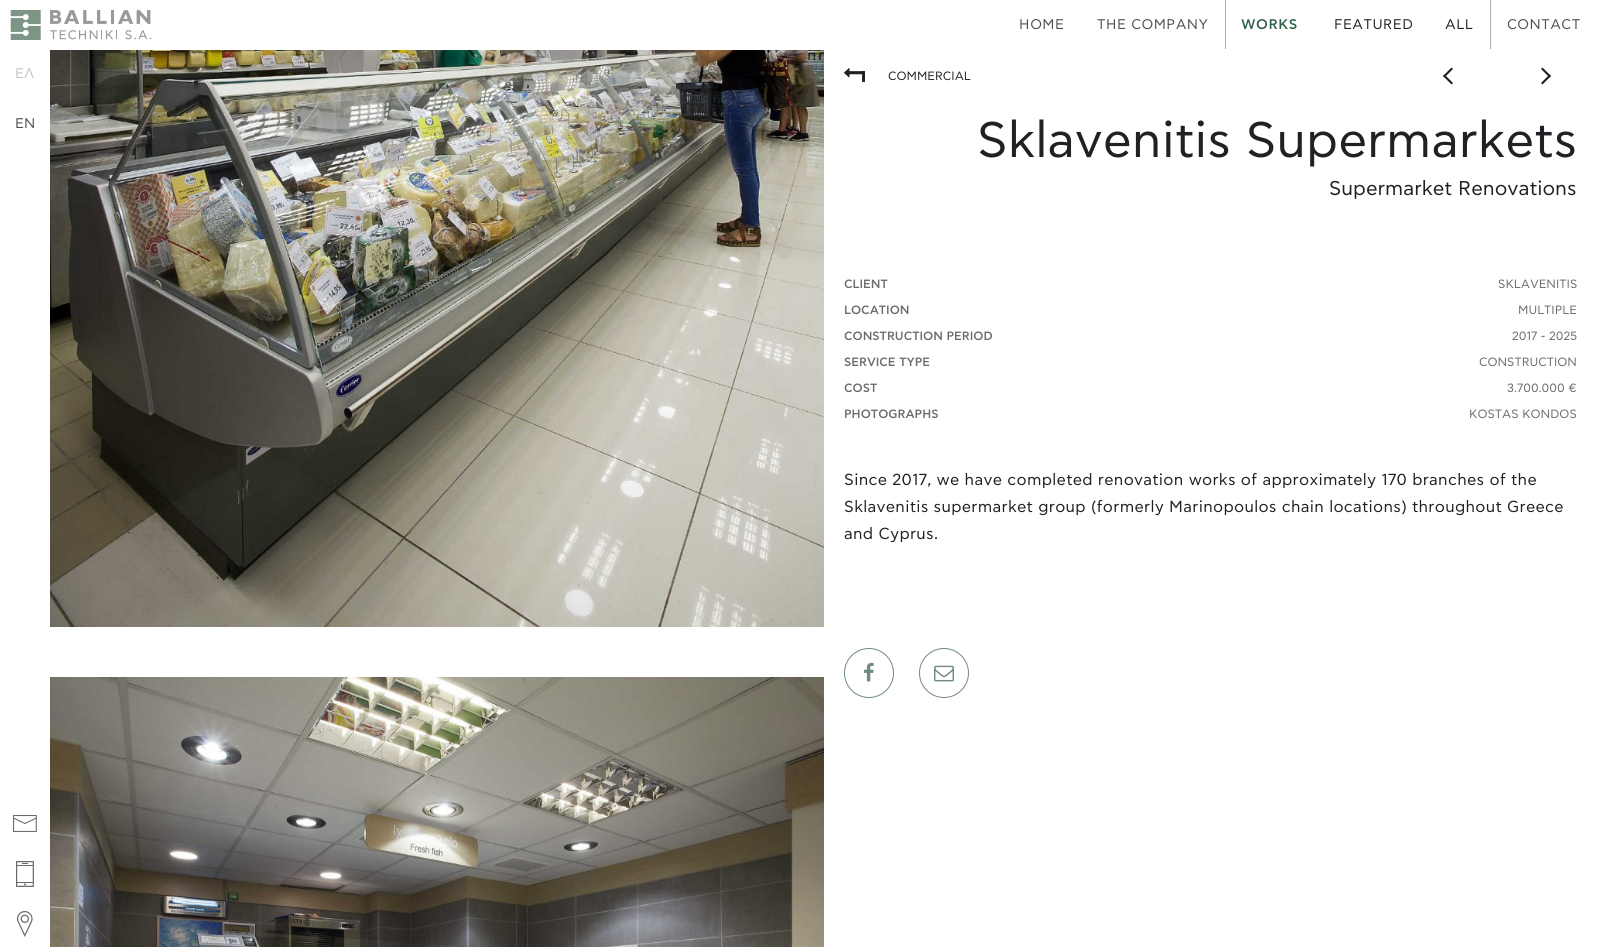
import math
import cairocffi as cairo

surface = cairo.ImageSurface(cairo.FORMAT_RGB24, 1597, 947)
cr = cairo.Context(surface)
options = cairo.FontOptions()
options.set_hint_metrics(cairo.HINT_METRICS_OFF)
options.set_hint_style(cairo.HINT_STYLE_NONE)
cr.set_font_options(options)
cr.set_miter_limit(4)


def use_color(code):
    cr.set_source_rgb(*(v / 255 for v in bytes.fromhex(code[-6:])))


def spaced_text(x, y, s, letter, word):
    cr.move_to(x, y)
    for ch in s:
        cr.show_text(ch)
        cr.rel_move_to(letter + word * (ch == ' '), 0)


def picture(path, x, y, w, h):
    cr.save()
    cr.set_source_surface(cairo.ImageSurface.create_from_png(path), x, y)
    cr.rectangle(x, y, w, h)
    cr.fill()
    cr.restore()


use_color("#ffffff")
cr.paint()
picture("img1.png", 10, 10, 142, 30)
cr.select_font_face("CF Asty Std")
cr.set_font_size(14)
use_color("#4e4e51")
spaced_text(1019, 29, "HOME", 0.5, 0)
spaced_text(1097, 29, "THE COMPANY", 0.5, 0)
use_color("#afafb1")
cr.rectangle(1490, 0, 1, 49)
cr.fill()
cr.rectangle(1225, 0, 1, 49)
cr.fill()
cr.select_font_face("CF Asty Std Medium")
use_color("#306149")
spaced_text(1241, 29, "WORKS", 0.5, 0)
cr.select_font_face("CF Asty Std")
use_color("#212125")
spaced_text(1334, 29, "FEATURED", 0.5, 0)
spaced_text(1445, 29, "ALL", 0.5, 0)
use_color("#4e4e51")
spaced_text(1507, 29, "CONTACT", 0.5, 0)
use_color("#c4c4c5")
cr.move_to(15, 78)
cr.show_text("ΕΛ")
use_color("#4e4e51")
cr.move_to(15, 128)
cr.show_text("EN")
picture("img2.png", 13, 815, 24, 17)
picture("img3.png", 16, 861, 18, 26)
picture("img4.png", 17, 911, 16, 26)
picture("img5.png", 50, 50, 774, 577)
picture("img6.png", 50, 677, 774, 270)
picture("img7.png", 844, 68, 21, 14)
cr.set_font_size(12)
use_color("#212125")
cr.move_to(888, 80)
cr.show_text("COMMERCIAL")
cr.new_path()
cr.move_to(1444.5, 74.5)
cr.line_to(1453, 83)
cr.line_to(1451.5, 84.5)
cr.line_to(1443, 76)
cr.close_path()
cr.fill()
cr.new_path()
cr.move_to(1451.5, 67.5)
cr.line_to(1453, 69)
cr.line_to(1444.5, 77.5)
cr.line_to(1443, 76)
cr.close_path()
cr.fill()
cr.new_path()
cr.move_to(1549.5, 77.5)
cr.line_to(1541, 69)
cr.line_to(1542.5, 67.5)
cr.line_to(1551, 76)
cr.close_path()
cr.fill()
cr.new_path()
cr.move_to(1542.5, 84.5)
cr.line_to(1541, 83)
cr.line_to(1549.5, 74.5)
cr.line_to(1551, 76)
cr.close_path()
cr.fill()
cr.set_font_size(50)
cr.move_to(977, 157)
cr.show_text("Sklavenitis Supermarkets")
cr.set_font_size(20)
cr.move_to(1329, 195)
cr.show_text("Supermarket Renovations")
cr.select_font_face("CF Asty Std Medium")
cr.set_font_size(12)
use_color("#6b6b6e")
cr.move_to(844, 288)
cr.show_text("CLIENT")
cr.select_font_face("CF Asty Std")
cr.move_to(1498, 288)
cr.show_text("SKLAVENITIS")
cr.select_font_face("CF Asty Std Medium")
cr.move_to(844, 314)
cr.show_text("LOCATION")
cr.select_font_face("CF Asty Std")
cr.move_to(1518, 314)
cr.show_text("MULTIPLE")
cr.select_font_face("CF Asty Std Medium")
cr.move_to(844, 340)
cr.show_text("CONSTRUCTION PERIOD")
cr.select_font_face("CF Asty Std")
cr.move_to(1512, 340)
cr.show_text("2017 - 2025")
cr.select_font_face("CF Asty Std Medium")
cr.move_to(844, 366)
cr.show_text("SERVICE TYPE")
cr.select_font_face("CF Asty Std")
cr.move_to(1479, 366)
cr.show_text("CONSTRUCTION")
cr.select_font_face("CF Asty Std Medium")
cr.move_to(844, 392)
cr.show_text("COST")
cr.select_font_face("CF Asty Std")
cr.move_to(1507, 392)
cr.show_text("3.700.000 €")
cr.select_font_face("CF Asty Std Medium")
cr.move_to(844, 418)
cr.show_text("PHOTOGRAPHS")
cr.select_font_face("CF Asty Std")
cr.move_to(1469, 418)
cr.show_text("KOSTAS KONDOS")
cr.set_font_size(16)
use_color("#212125")
spaced_text(844, 485, "Since 2017, we have completed renovation works of approximately 170 branches of the", 0.3, 0)
spaced_text(844, 512, "Sklavenitis supermarket group (formerly Marinopoulos chain locations) throughout Greece", 0.3, 0)
spaced_text(844, 539, "and Cyprus.", 0.3, 0)
cr.new_path()
cr.arc(869, 673, 24.5, 0, 2 * math.pi)
use_color("#708c80")
cr.set_line_width(1)
cr.stroke()
picture("img8.png", 864, 662, 10, 20)
cr.arc(944, 673, 24.5, 0, 2 * math.pi)
cr.stroke()
picture("img9.png", 934, 665, 20, 17)
surface.write_to_png("result.png")
